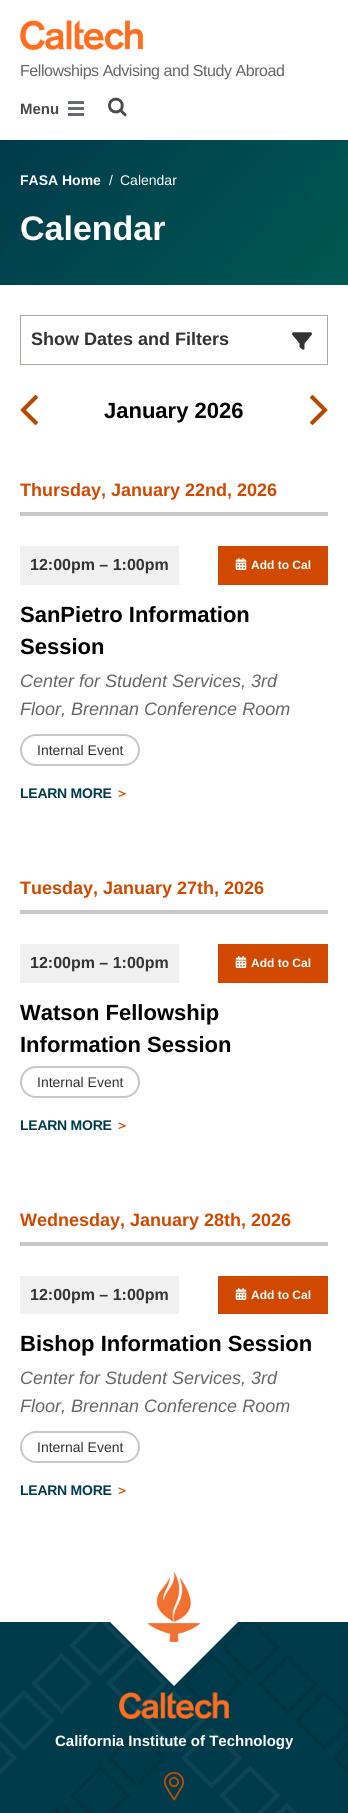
import math
import cairocffi as cairo

surface = cairo.ImageSurface(cairo.FORMAT_RGB24, 348, 1813)
cr = cairo.Context(surface)
options = cairo.FontOptions()
options.set_hint_metrics(cairo.HINT_METRICS_OFF)
options.set_hint_style(cairo.HINT_STYLE_NONE)
cr.set_font_options(options)
cr.set_miter_limit(4)


def use_color(code):
    cr.set_source_rgb(*(v / 255 for v in bytes.fromhex(code[-6:])))


def spaced_text(x, y, s, letter, word):
    cr.move_to(x, y)
    for ch in s:
        cr.show_text(ch)
        cr.rel_move_to(letter + word * (ch == ' '), 0)


def round_rect(x, y, w, h, r):
    cr.new_sub_path()
    for i, (u, v) in enumerate([(x + w - r, y + h - r), (x + r, y + h - r), (x + r, y + r), (x + w - r, y + r)]):
        cr.arc(u, v, r, i * math.pi / 2, (i + 1) * math.pi / 2)
    cr.close_path()


def picture(path, x, y, w, h):
    cr.save()
    cr.set_source_surface(cairo.ImageSurface.create_from_png(path), x, y)
    cr.rectangle(x, y, w, h)
    cr.fill()
    cr.restore()


use_color("#ffffff")
cr.paint()
picture("img1.png", 20, 20, 123, 30)
cr.select_font_face("Liberation Sans")
cr.set_font_size(16)
use_color("#666666")
spaced_text(20, 76, "Fellowships Advising and Study Abroad", -0.45, 0)
cr.select_font_face("Liberation Sans", cairo.FONT_SLANT_NORMAL, cairo.FONT_WEIGHT_BOLD)
cr.set_font_size(15)
use_color("#4a4a4a")
cr.move_to(20, 114)
cr.show_text("Menu")
picture("img2.png", 68, 101, 16, 15)
picture("img3.png", 108, 97, 19, 20)
gradient = cairo.LinearGradient(48, 91, 300, 334)
gradient.add_color_stop_rgba(0, 0, 0.231, 0.298, 1)
gradient.add_color_stop_rgba(1, 0, 0.345, 0.318, 1)
cr.set_source(gradient)
cr.rectangle(0, 140, 348, 145)
cr.fill()
cr.set_font_size(14)
use_color("#ffffff")
cr.move_to(20, 185)
cr.show_text("FASA Home")
cr.select_font_face("Liberation Sans")
cr.move_to(109, 185)
cr.show_text("/")
cr.move_to(120, 185)
cr.show_text("Calendar")
cr.select_font_face("Liberation Sans", cairo.FONT_SLANT_NORMAL, cairo.FONT_WEIGHT_BOLD)
cr.set_font_size(34)
cr.move_to(20, 240)
cr.show_text("Calendar")
cr.rectangle(20.5, 315.5, 307, 49)
use_color("#aaa99f")
cr.set_line_width(1)
cr.stroke()
cr.set_font_size(18)
use_color("#333333")
cr.move_to(31, 345)
cr.show_text("Show Dates and Filters")
picture("img4.png", 292, 332, 20, 18)
picture("img5.png", 20, 395, 18, 30)
cr.set_font_size(22)
use_color("#000000")
cr.move_to(104, 418)
cr.show_text("January 2026")
picture("img6.png", 310, 395, 18, 30)
use_color("#c8c8c8")
cr.rectangle(20, 512, 308, 4)
cr.fill()
cr.set_font_size(18)
use_color("#d14900")
cr.move_to(20, 496)
cr.show_text("Thursday, January 22nd, 2026")
use_color("#f0f0f0")
cr.rectangle(20, 546, 159, 39)
cr.fill()
cr.set_font_size(16)
use_color("#333333")
cr.move_to(30, 570)
cr.show_text("12:00pm – 1:00pm")
use_color("#d14900")
cr.rectangle(218, 546, 110, 39)
cr.fill()
picture("img7.png", 235, 558, 12, 12)
cr.set_font_size(12)
use_color("#ffffff")
cr.move_to(251, 569)
cr.show_text("Add to Cal")
cr.set_font_size(22)
use_color("#000000")
cr.move_to(20, 622)
cr.show_text("SanPietro Information")
cr.move_to(20, 654)
cr.show_text("Session")
cr.select_font_face("Liberation Sans", cairo.FONT_SLANT_ITALIC)
cr.set_font_size(18)
use_color("#666666")
cr.move_to(20, 687)
cr.show_text("Center for Student Services, 3rd")
cr.move_to(20, 715)
cr.show_text("Floor, Brennan Conference Room")
round_rect(21, 735, 118, 30, 15)
use_color("#c8c8c8")
cr.set_line_width(2)
cr.stroke()
cr.select_font_face("Liberation Sans")
cr.set_font_size(14)
use_color("#333333")
cr.move_to(37, 755)
cr.show_text("Internal Event")
cr.select_font_face("Liberation Sans", cairo.FONT_SLANT_NORMAL, cairo.FONT_WEIGHT_BOLD)
use_color("#003b4c")
spaced_text(20, 798, "LEARN MORE", -0.25, 0)
cr.select_font_face("WenQuanYi Zen Hei", cairo.FONT_SLANT_NORMAL, cairo.FONT_WEIGHT_BOLD)
use_color("#d14900")
spaced_text(115, 798, "＞", -0.25, 0)
use_color("#c8c8c8")
cr.rectangle(20, 910, 308, 4)
cr.fill()
cr.select_font_face("Liberation Sans", cairo.FONT_SLANT_NORMAL, cairo.FONT_WEIGHT_BOLD)
cr.set_font_size(18)
use_color("#d14900")
cr.move_to(20, 894)
cr.show_text("Tuesday, January 27th, 2026")
use_color("#f0f0f0")
cr.rectangle(20, 944, 159, 39)
cr.fill()
cr.set_font_size(16)
use_color("#333333")
cr.move_to(30, 968)
cr.show_text("12:00pm – 1:00pm")
use_color("#d14900")
cr.rectangle(218, 944, 110, 39)
cr.fill()
picture("img7.png", 235, 956, 12, 12)
cr.set_font_size(12)
use_color("#ffffff")
cr.move_to(251, 967)
cr.show_text("Add to Cal")
cr.set_font_size(22)
use_color("#000000")
cr.move_to(20, 1020)
cr.show_text("Watson Fellowship")
cr.move_to(20, 1052)
cr.show_text("Information Session")
round_rect(21, 1067, 118, 30, 15)
use_color("#c8c8c8")
cr.stroke()
cr.select_font_face("Liberation Sans")
cr.set_font_size(14)
use_color("#333333")
cr.move_to(37, 1087)
cr.show_text("Internal Event")
cr.select_font_face("Liberation Sans", cairo.FONT_SLANT_NORMAL, cairo.FONT_WEIGHT_BOLD)
use_color("#003b4c")
spaced_text(20, 1130, "LEARN MORE", -0.25, 0)
cr.select_font_face("WenQuanYi Zen Hei", cairo.FONT_SLANT_NORMAL, cairo.FONT_WEIGHT_BOLD)
use_color("#d14900")
spaced_text(115, 1130, "＞", -0.25, 0)
use_color("#c8c8c8")
cr.rectangle(20, 1242, 308, 4)
cr.fill()
cr.select_font_face("Liberation Sans", cairo.FONT_SLANT_NORMAL, cairo.FONT_WEIGHT_BOLD)
cr.set_font_size(18)
use_color("#d14900")
cr.move_to(20, 1226)
cr.show_text("Wednesday, January 28th, 2026")
use_color("#f0f0f0")
cr.rectangle(20, 1276, 159, 38)
cr.fill()
cr.set_font_size(16)
use_color("#333333")
cr.move_to(30, 1300)
cr.show_text("12:00pm – 1:00pm")
use_color("#d14900")
cr.rectangle(218, 1276, 110, 38)
cr.fill()
picture("img7.png", 235, 1288, 12, 12)
cr.set_font_size(12)
use_color("#ffffff")
cr.move_to(251, 1299)
cr.show_text("Add to Cal")
cr.set_font_size(22)
use_color("#000000")
cr.move_to(20, 1351)
cr.show_text("Bishop Information Session")
cr.select_font_face("Liberation Sans", cairo.FONT_SLANT_ITALIC)
cr.set_font_size(18)
use_color("#666666")
cr.move_to(20, 1384)
cr.show_text("Center for Student Services, 3rd")
cr.move_to(20, 1412)
cr.show_text("Floor, Brennan Conference Room")
round_rect(21, 1432, 118, 30, 15)
use_color("#c8c8c8")
cr.stroke()
cr.select_font_face("Liberation Sans")
cr.set_font_size(14)
use_color("#333333")
cr.move_to(37, 1452)
cr.show_text("Internal Event")
cr.select_font_face("Liberation Sans", cairo.FONT_SLANT_NORMAL, cairo.FONT_WEIGHT_BOLD)
use_color("#003b4c")
spaced_text(20, 1495, "LEARN MORE", -0.25, 0)
cr.select_font_face("WenQuanYi Zen Hei", cairo.FONT_SLANT_NORMAL, cairo.FONT_WEIGHT_BOLD)
use_color("#d14900")
spaced_text(115, 1495, "＞", -0.25, 0)
use_color("#003b4c")
cr.rectangle(0, 1622, 348, 191)
cr.fill()
picture("img8.png", 0, 1622, 348, 191)
use_color("#ffffff")
cr.new_path()
cr.move_to(174, 1559)
cr.line_to(238, 1622)
cr.line_to(174, 1686)
cr.line_to(110, 1622)
cr.close_path()
cr.fill()
picture("img9.png", 148, 1572, 52, 70)
picture("img10.png", 119, 1692, 110, 27)
cr.select_font_face("Liberation Sans", cairo.FONT_SLANT_NORMAL, cairo.FONT_WEIGHT_BOLD)
cr.set_font_size(15)
cr.move_to(55, 1746)
cr.show_text("California Institute of Technology")
picture("img11.png", 164, 1772, 20, 29)
surface.write_to_png("result.png")
